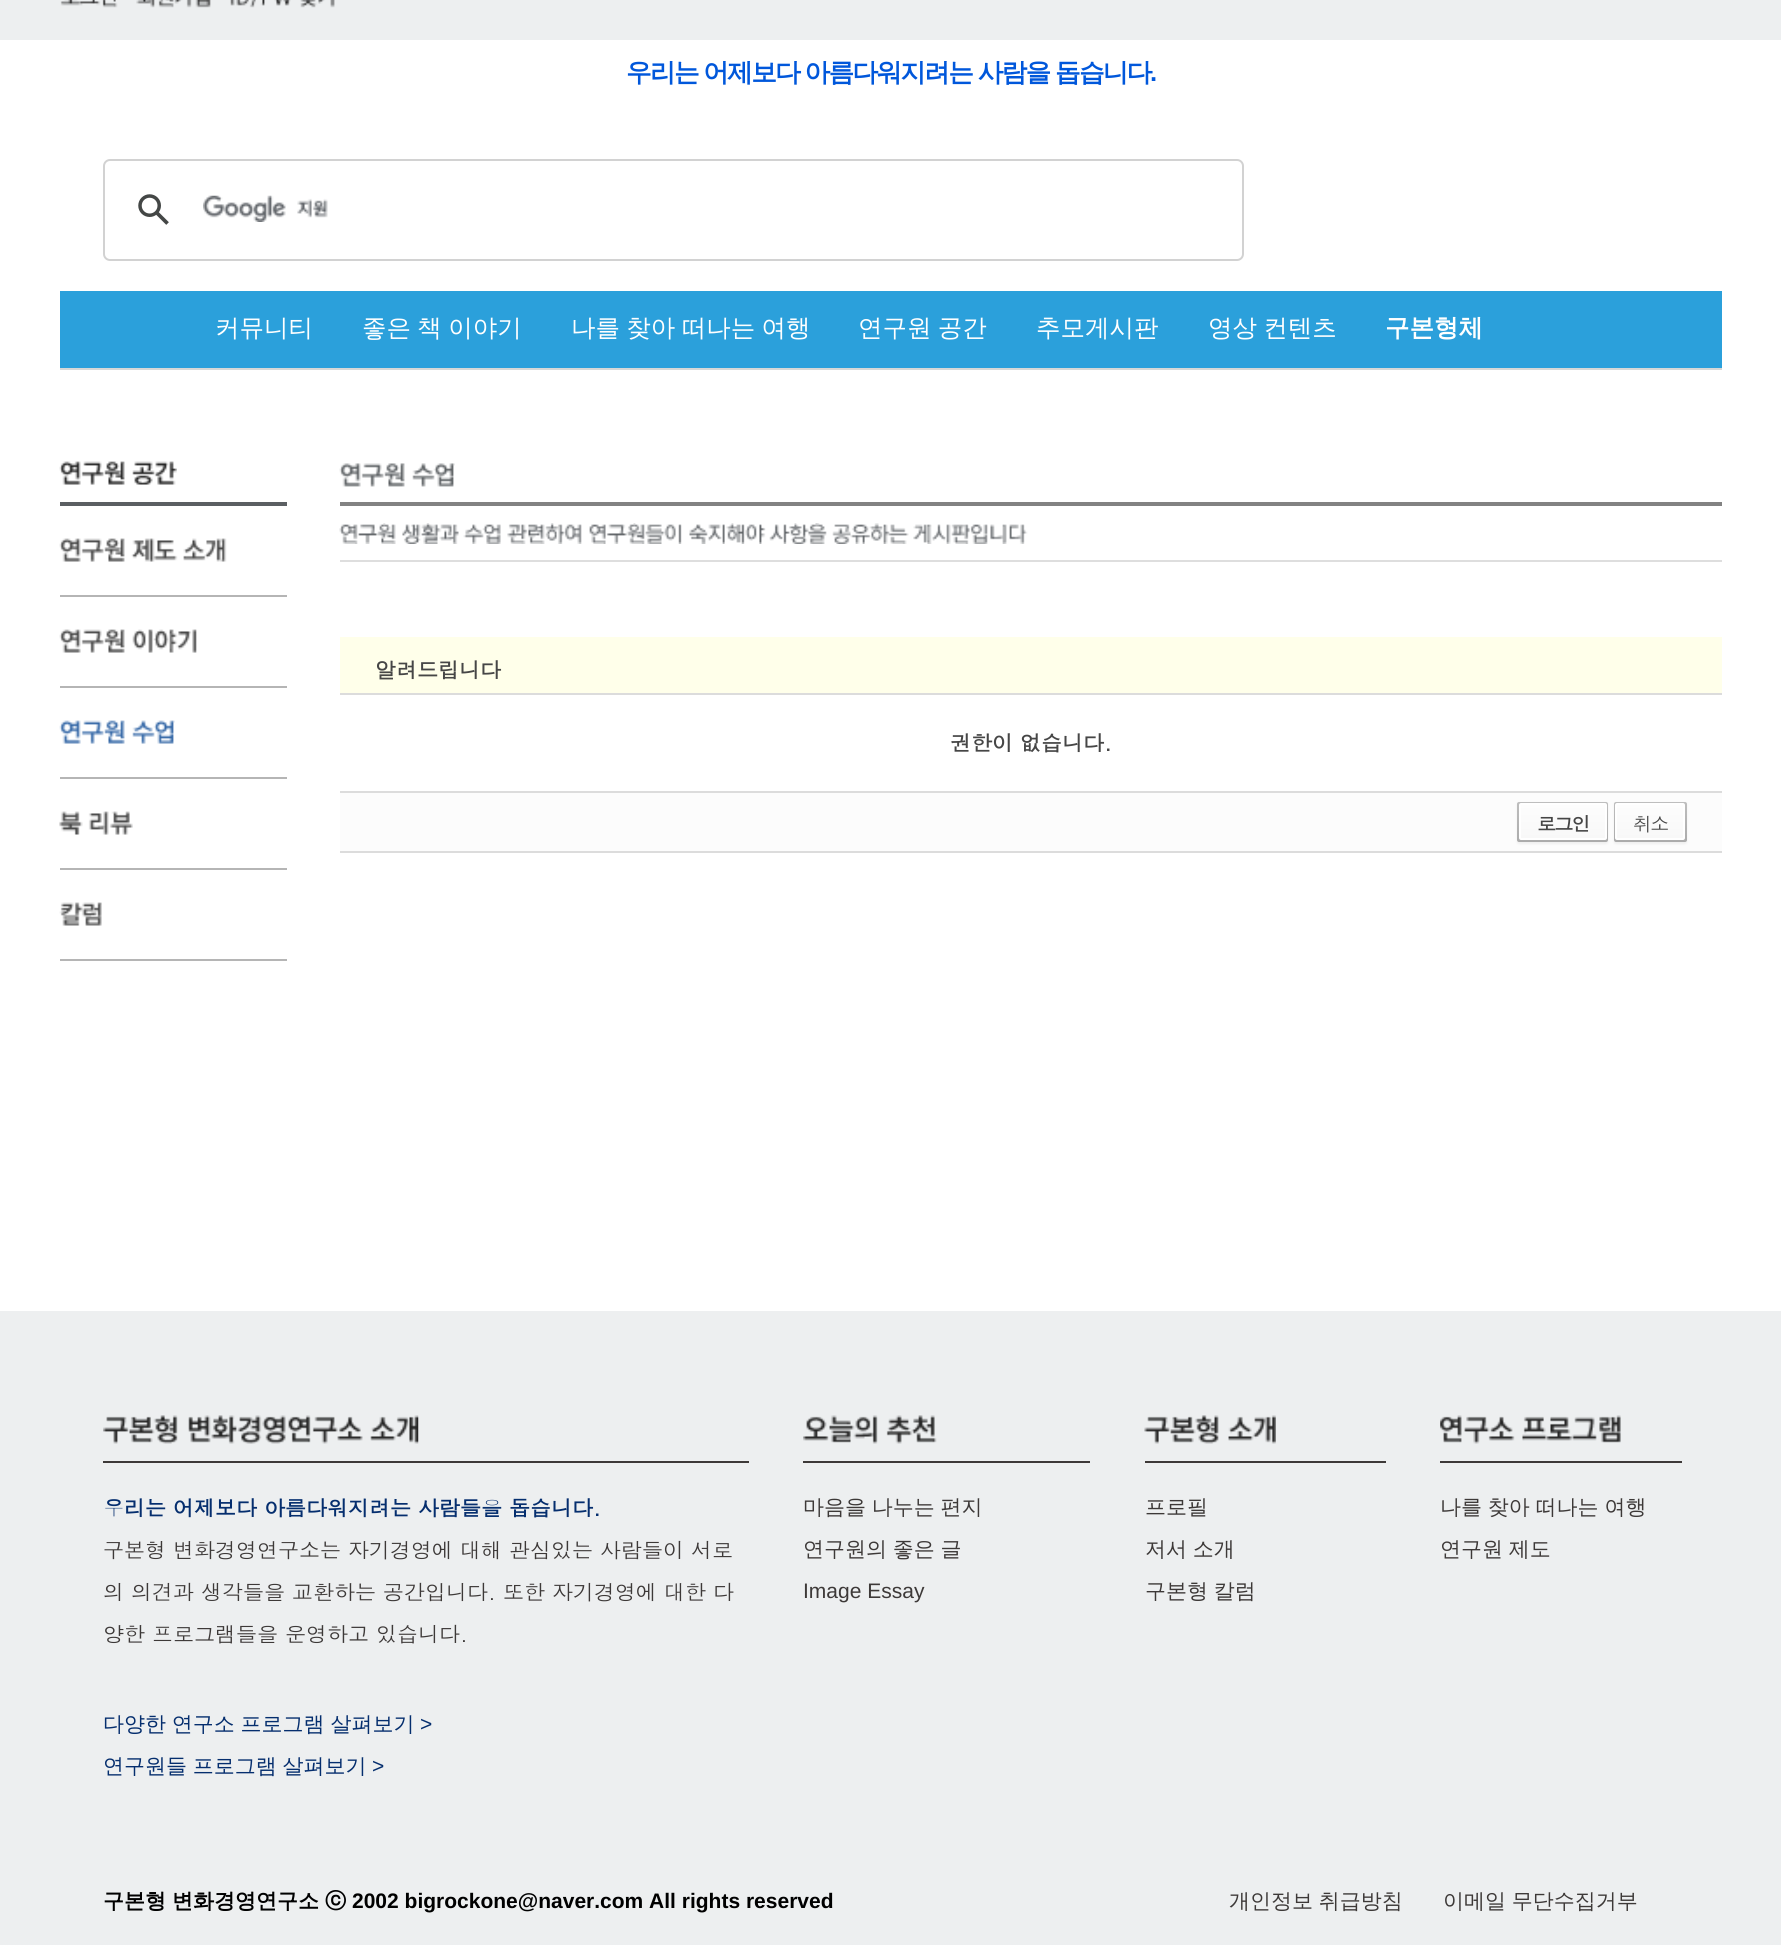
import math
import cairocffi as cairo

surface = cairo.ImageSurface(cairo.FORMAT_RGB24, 1781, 1945)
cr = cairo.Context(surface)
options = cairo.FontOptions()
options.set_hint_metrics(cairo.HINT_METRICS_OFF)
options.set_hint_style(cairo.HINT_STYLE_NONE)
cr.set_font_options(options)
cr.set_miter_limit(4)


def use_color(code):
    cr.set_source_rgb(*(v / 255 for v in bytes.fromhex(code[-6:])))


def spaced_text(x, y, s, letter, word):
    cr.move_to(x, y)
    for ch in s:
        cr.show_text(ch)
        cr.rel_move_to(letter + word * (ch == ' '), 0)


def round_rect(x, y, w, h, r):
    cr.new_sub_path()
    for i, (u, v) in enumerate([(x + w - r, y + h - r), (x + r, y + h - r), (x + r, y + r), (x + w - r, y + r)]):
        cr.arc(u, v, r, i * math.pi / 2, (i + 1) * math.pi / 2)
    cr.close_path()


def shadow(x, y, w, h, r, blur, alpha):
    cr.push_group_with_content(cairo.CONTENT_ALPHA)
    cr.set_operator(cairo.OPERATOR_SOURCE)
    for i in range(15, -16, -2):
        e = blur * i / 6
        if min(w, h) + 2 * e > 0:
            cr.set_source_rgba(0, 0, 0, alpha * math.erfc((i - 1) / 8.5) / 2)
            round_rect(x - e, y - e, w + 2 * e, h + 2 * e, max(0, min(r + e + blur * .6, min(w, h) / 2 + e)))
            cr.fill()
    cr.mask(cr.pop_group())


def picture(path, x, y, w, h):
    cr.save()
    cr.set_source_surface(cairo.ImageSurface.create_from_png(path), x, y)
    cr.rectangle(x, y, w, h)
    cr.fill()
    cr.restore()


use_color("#ffffff")
cr.paint()
use_color("#edeff0")
cr.rectangle(0, 0, 1781, 40)
cr.fill()
use_color("#d6d8d7")
cr.rectangle(60, 368, 1662, 2)
cr.fill()
picture("img1.png", 60, 0, 58, 8)
picture("img2.png", 136, 0, 75, 8)
picture("img3.png", 230, 0, 105, 8)
cr.select_font_face("WenQuanYi Zen Hei", cairo.FONT_SLANT_NORMAL, cairo.FONT_WEIGHT_BOLD)
cr.set_font_size(25.7)
use_color("#0057db")
spaced_text(626, 81, "우리는 어제보다 아름다워지려는 사람을 돕습니다", -1.75, -0.5)
cr.select_font_face("Liberation Sans", cairo.FONT_SLANT_NORMAL, cairo.FONT_WEIGHT_BOLD)
spaced_text(1150, 81, ".", -1.75, 0)
round_rect(104, 160, 1139, 100, 6)
use_color("#d2d2d2")
cr.stroke()
picture("img4.png", 138, 194, 31, 31)
picture("img5.png", 203, 195, 125, 27)
use_color("#2ba0db")
cr.rectangle(60, 291, 1662, 77)
cr.fill()
cr.select_font_face("WenQuanYi Zen Hei Medium")
cr.set_font_size(24.5)
use_color("#ffffff")
cr.move_to(215, 336)
cr.show_text("커뮤니티")
spaced_text(362, 336, "좋은 책 이야기", 0, -1)
spaced_text(571, 336, "나를 찾아 떠나는 여행", 0, -1)
spaced_text(858, 336, "연구원 공간", 0, -1)
cr.move_to(1036, 336)
cr.show_text("추모게시판")
spaced_text(1208, 336, "영상 컨텐츠", 0, -1)
cr.select_font_face("WenQuanYi Zen Hei", cairo.FONT_SLANT_NORMAL, cairo.FONT_WEIGHT_BOLD)
cr.move_to(1385, 336)
cr.show_text("구본형체")
use_color("#5b5f62")
cr.rectangle(60, 502, 227, 4)
cr.fill()
picture("img6.png", 59, 461, 118, 24)
use_color("#b5b5b5")
cr.rectangle(60, 959, 227, 2)
cr.fill()
picture("img7.png", 59, 538, 168, 24)
cr.rectangle(60, 595, 227, 2)
cr.fill()
picture("img8.png", 59, 629, 138, 24)
cr.rectangle(60, 686, 227, 2)
cr.fill()
picture("img9.png", 59, 720, 116, 24)
cr.rectangle(60, 777, 227, 2)
cr.fill()
picture("img10.png", 59, 811, 74, 24)
cr.rectangle(60, 868, 227, 2)
cr.fill()
picture("img11.png", 59, 902, 43, 24)
use_color("#828282")
cr.rectangle(340, 502, 1382, 4)
cr.fill()
picture("img12.png", 339, 463, 116, 24)
use_color("#dedede")
cr.rectangle(340, 560, 1382, 2)
cr.fill()
picture("img13.png", 339, 523, 689, 21)
use_color("#ffffea")
cr.rectangle(340, 637, 1382, 56)
cr.fill()
cr.select_font_face("Dotum", cairo.FONT_SLANT_NORMAL, cairo.FONT_WEIGHT_BOLD)
cr.set_font_size(21)
use_color("#464646")
cr.move_to(375, 678)
cr.show_text("알려드립니다")
use_color("#dcdcdc")
cr.rectangle(340, 693, 1382, 2)
cr.fill()
use_color("#464646")
cr.move_to(950, 751)
cr.show_text("권한이 없습니다.")
use_color("#fcfcfc")
cr.rectangle(340, 793, 1382, 58)
cr.fill()
use_color("#dcdcdc")
cr.rectangle(340, 791, 1382, 2)
cr.fill()
cr.rectangle(340, 851, 1382, 2)
cr.fill()
use_color("#efefef")
shadow(1517, 803, 91, 41, 2, 1, 1)
gradient = cairo.LinearGradient(1563, 802, 1563, 842)
gradient.add_color_stop_rgba(0, 0.745, 0.745, 0.745, 1)
gradient.add_color_stop_rgba(1, 0.671, 0.671, 0.671, 1)
cr.set_source(gradient)
round_rect(1517, 802, 91, 40, 2)
cr.fill()
gradient = cairo.LinearGradient(1563, 805, 1563, 838)
gradient.add_color_stop_rgba(0, 0.992, 0.992, 0.992, 1)
gradient.add_color_stop_rgba(1, 0.973, 0.973, 0.973, 1)
cr.set_source(gradient)
cr.rectangle(1521, 805, 84, 33)
cr.fill()
round_rect(1520, 804, 86, 35, 1)
use_color("#ffffff")
cr.stroke()
cr.set_font_size(19)
use_color("#464646")
spaced_text(1537, 831, "로그인", -1.75, 0)
use_color("#efefef")
shadow(1614, 803, 73, 41, 2, 1, 1)
gradient = cairo.LinearGradient(1650, 802, 1650, 842)
gradient.add_color_stop_rgba(0, 0.745, 0.745, 0.745, 1)
gradient.add_color_stop_rgba(1, 0.671, 0.671, 0.671, 1)
cr.set_source(gradient)
round_rect(1614, 802, 73, 40, 2)
cr.fill()
gradient = cairo.LinearGradient(1650, 805, 1650, 838)
gradient.add_color_stop_rgba(0, 0.992, 0.992, 0.992, 1)
gradient.add_color_stop_rgba(1, 0.973, 0.973, 0.973, 1)
cr.set_source(gradient)
cr.rectangle(1617, 805, 66, 33)
cr.fill()
round_rect(1616, 804, 68, 35, 1)
use_color("#ffffff")
cr.stroke()
cr.select_font_face("Dotum")
use_color("#464646")
spaced_text(1633, 831, "취소", -1.75, 0)
use_color("#edeff0")
cr.rectangle(0, 1311, 1781, 634)
cr.fill()
use_color("#3d3938")
cr.rectangle(103, 1461, 646, 2)
cr.fill()
picture("img14.png", 103, 1415, 316, 29)
cr.select_font_face("Dotum", cairo.FONT_SLANT_NORMAL, cairo.FONT_WEIGHT_BOLD)
cr.set_font_size(21)
use_color("#052e6e")
cr.move_to(103, 1516)
cr.show_text("우리는 어제보다 아름다워지려는 사람들을 돕습니다.")
cr.select_font_face("Dotum")
use_color("#3d3938")
cr.move_to(103, 1558)
cr.show_text("구본형 변화경영연구소는 자기경영에 대해 관심있는 사람들이 서로")
cr.move_to(103, 1600)
cr.show_text("의 의견과 생각들을 교환하는 공간입니다. 또한 자기경영에 대한 다")
cr.move_to(103, 1642)
cr.show_text("양한 프로그램들을 운영하고 있습니다.")
cr.select_font_face("WenQuanYi Zen Hei Medium")
use_color("#052e6e")
spaced_text(103, 1731, "다양한 연구소 프로그램 살펴보기", 0, -0.5)
cr.select_font_face("Liberation Sans")
cr.move_to(420, 1731)
cr.show_text(">")
cr.select_font_face("WenQuanYi Zen Hei Medium")
spaced_text(103, 1773, "연구원들 프로그램 살펴보기", 0, -0.5)
cr.select_font_face("Liberation Sans")
cr.move_to(372, 1773)
cr.show_text(">")
use_color("#3d3938")
cr.rectangle(803, 1461, 287, 2)
cr.fill()
picture("img15.png", 803, 1415, 134, 29)
cr.select_font_face("WenQuanYi Zen Hei Medium")
spaced_text(803, 1514, "마음을 나누는 편지", 0, -0.5)
spaced_text(803, 1556, "연구원의 좋은 글", 0, -0.5)
cr.select_font_face("Liberation Sans")
cr.move_to(803, 1598)
cr.show_text("Image Essay")
cr.rectangle(1145, 1461, 241, 2)
cr.fill()
picture("img16.png", 1144, 1415, 132, 29)
cr.select_font_face("WenQuanYi Zen Hei Medium")
cr.move_to(1145, 1514)
cr.show_text("프로필")
spaced_text(1145, 1556, "저서 소개", 0, -0.5)
spaced_text(1145, 1598, "구본형 칼럼", 0, -0.5)
cr.rectangle(1440, 1461, 242, 2)
cr.fill()
picture("img17.png", 1440, 1415, 181, 29)
spaced_text(1440, 1514, "나를 찾아 떠나는 여행", 0, -0.5)
spaced_text(1440, 1556, "연구원 제도", 0, -0.5)
cr.select_font_face("WenQuanYi Zen Hei", cairo.FONT_SLANT_NORMAL, cairo.FONT_WEIGHT_BOLD)
use_color("#000000")
cr.move_to(103, 1908)
cr.show_text("구본형")
cr.move_to(172, 1908)
cr.show_text("변화경영연구소")
cr.move_to(325, 1908)
cr.show_text("ⓒ")
cr.select_font_face("Liberation Sans", cairo.FONT_SLANT_NORMAL, cairo.FONT_WEIGHT_BOLD)
cr.move_to(352, 1908)
cr.show_text("2002 bigrockone@naver.com All rights reserved")
cr.select_font_face("WenQuanYi Zen Hei Medium")
use_color("#3d3938")
spaced_text(1229, 1908, "개인정보 취급방침", 0, -0.5)
spaced_text(1443, 1908, "이메일 무단수집거부", 0, -0.5)
surface.write_to_png("result.png")
